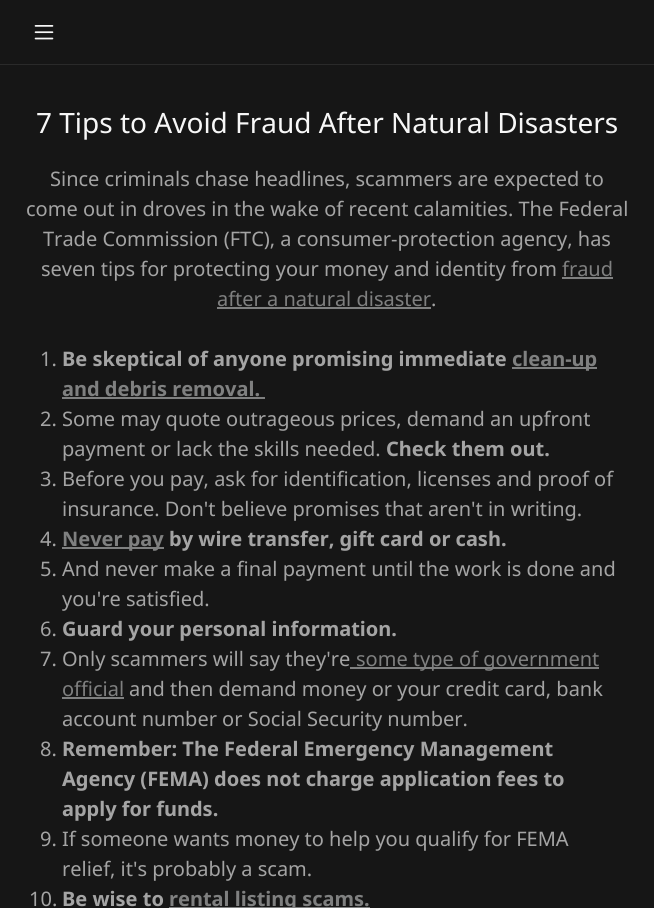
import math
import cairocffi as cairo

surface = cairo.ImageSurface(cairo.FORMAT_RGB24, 654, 908)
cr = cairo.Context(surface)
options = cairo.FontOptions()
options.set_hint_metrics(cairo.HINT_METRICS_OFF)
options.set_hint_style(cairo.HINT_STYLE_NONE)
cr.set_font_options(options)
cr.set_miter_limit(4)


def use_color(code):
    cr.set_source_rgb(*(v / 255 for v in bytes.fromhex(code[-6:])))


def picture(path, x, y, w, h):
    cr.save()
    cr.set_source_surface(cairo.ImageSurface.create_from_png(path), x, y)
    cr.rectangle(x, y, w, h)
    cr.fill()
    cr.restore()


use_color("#161616")
cr.paint()
picture("img1.png", 34, 25, 20, 15)
use_color("#2a2a2a")
cr.rectangle(0, 64, 654, 1)
cr.fill()
cr.select_font_face("Noto Sans")
cr.set_font_size(28)
use_color("#f7f7f7")
cr.move_to(36, 133)
cr.show_text("7 Tips to Avoid Fraud After Natural Disasters")
cr.set_font_size(20)
use_color("#a4a4a4")
cr.move_to(50, 186)
cr.show_text("Since criminals chase headlines, scammers are expected to")
cr.move_to(26, 216)
cr.show_text("come out in droves in the wake of recent calamities. The Federal")
cr.move_to(43, 246)
cr.show_text("Trade Commission (FTC), a consumer-protection agency, has")
cr.move_to(41, 276)
cr.show_text("seven tips for protecting your money and identity from")
use_color("#7f8080")
cr.move_to(562, 276)
cr.show_text("fraud")
cr.rectangle(562, 277, 51, 2)
cr.fill()
cr.move_to(217, 306)
cr.show_text("after a natural disaster")
use_color("#a4a4a4")
cr.move_to(431, 306)
cr.show_text(".")
use_color("#7f8080")
cr.rectangle(217, 307, 214, 2)
cr.fill()
use_color("#a4a4a4")
cr.move_to(40, 366)
cr.show_text("1.")
cr.select_font_face("Noto Sans", cairo.FONT_SLANT_NORMAL, cairo.FONT_WEIGHT_BOLD)
cr.move_to(62, 366)
cr.show_text("Be skeptical of anyone promising immediate")
use_color("#7f8080")
cr.rectangle(512, 367, 85, 2)
cr.fill()
cr.move_to(512, 366)
cr.show_text("clean-up")
cr.move_to(62, 396)
cr.show_text("and debris removal.")
cr.rectangle(62, 397, 203, 2)
cr.fill()
cr.select_font_face("Noto Sans")
use_color("#a4a4a4")
cr.move_to(40, 426)
cr.show_text("2. Some may quote outrageous prices, demand an upfront")
cr.move_to(62, 456)
cr.show_text("payment or lack the skills needed.")
cr.select_font_face("Noto Sans", cairo.FONT_SLANT_NORMAL, cairo.FONT_WEIGHT_BOLD)
cr.move_to(386, 456)
cr.show_text("Check them out.")
cr.select_font_face("Noto Sans")
cr.move_to(40, 486)
cr.show_text("3. Before you pay, ask for identification, licenses and proof of")
cr.move_to(62, 516)
cr.show_text("insurance. Don't believe promises that aren't in writing.")
cr.move_to(40, 546)
cr.show_text("4.")
use_color("#7f8080")
cr.rectangle(62, 547, 102, 2)
cr.fill()
cr.select_font_face("Noto Sans", cairo.FONT_SLANT_NORMAL, cairo.FONT_WEIGHT_BOLD)
cr.move_to(62, 546)
cr.show_text("Never pay")
use_color("#a4a4a4")
cr.move_to(169, 546)
cr.show_text("by wire transfer, gift card or cash.")
cr.select_font_face("Noto Sans")
cr.move_to(40, 576)
cr.show_text("5. And never make a final payment until the work is done and")
cr.move_to(62, 606)
cr.show_text("you're satisfied.")
cr.move_to(40, 636)
cr.show_text("6.")
cr.select_font_face("Noto Sans", cairo.FONT_SLANT_NORMAL, cairo.FONT_WEIGHT_BOLD)
cr.move_to(62, 636)
cr.show_text("Guard your personal information.")
cr.select_font_face("Noto Sans")
cr.move_to(40, 666)
cr.show_text("7. Only scammers will say they're")
use_color("#7f8080")
cr.rectangle(350, 667, 249, 2)
cr.fill()
cr.move_to(356, 666)
cr.show_text("some type of government")
cr.move_to(62, 696)
cr.show_text("official")
cr.rectangle(62, 697, 62, 2)
cr.fill()
use_color("#a4a4a4")
cr.move_to(129, 696)
cr.show_text("and then demand money or your credit card, bank")
cr.move_to(62, 726)
cr.show_text("account number or Social Security number.")
cr.move_to(40, 756)
cr.show_text("8.")
cr.select_font_face("Noto Sans", cairo.FONT_SLANT_NORMAL, cairo.FONT_WEIGHT_BOLD)
cr.move_to(62, 756)
cr.show_text("Remember: The Federal Emergency Management")
cr.move_to(62, 786)
cr.show_text("Agency (FEMA) does not charge application fees to")
cr.move_to(62, 816)
cr.show_text("apply for funds.")
cr.select_font_face("Noto Sans")
cr.move_to(40, 846)
cr.show_text("9. If someone wants money to help you qualify for FEMA")
cr.move_to(62, 876)
cr.show_text("relief, it's probably a scam.")
cr.move_to(29, 906)
cr.show_text("10.")
cr.select_font_face("Noto Sans", cairo.FONT_SLANT_NORMAL, cairo.FONT_WEIGHT_BOLD)
cr.move_to(62, 906)
cr.show_text("Be wise to")
use_color("#7f8080")
cr.rectangle(169, 907, 201, 1)
cr.fill()
cr.move_to(169, 906)
cr.show_text("rental listing scams.")
surface.write_to_png("result.png")
